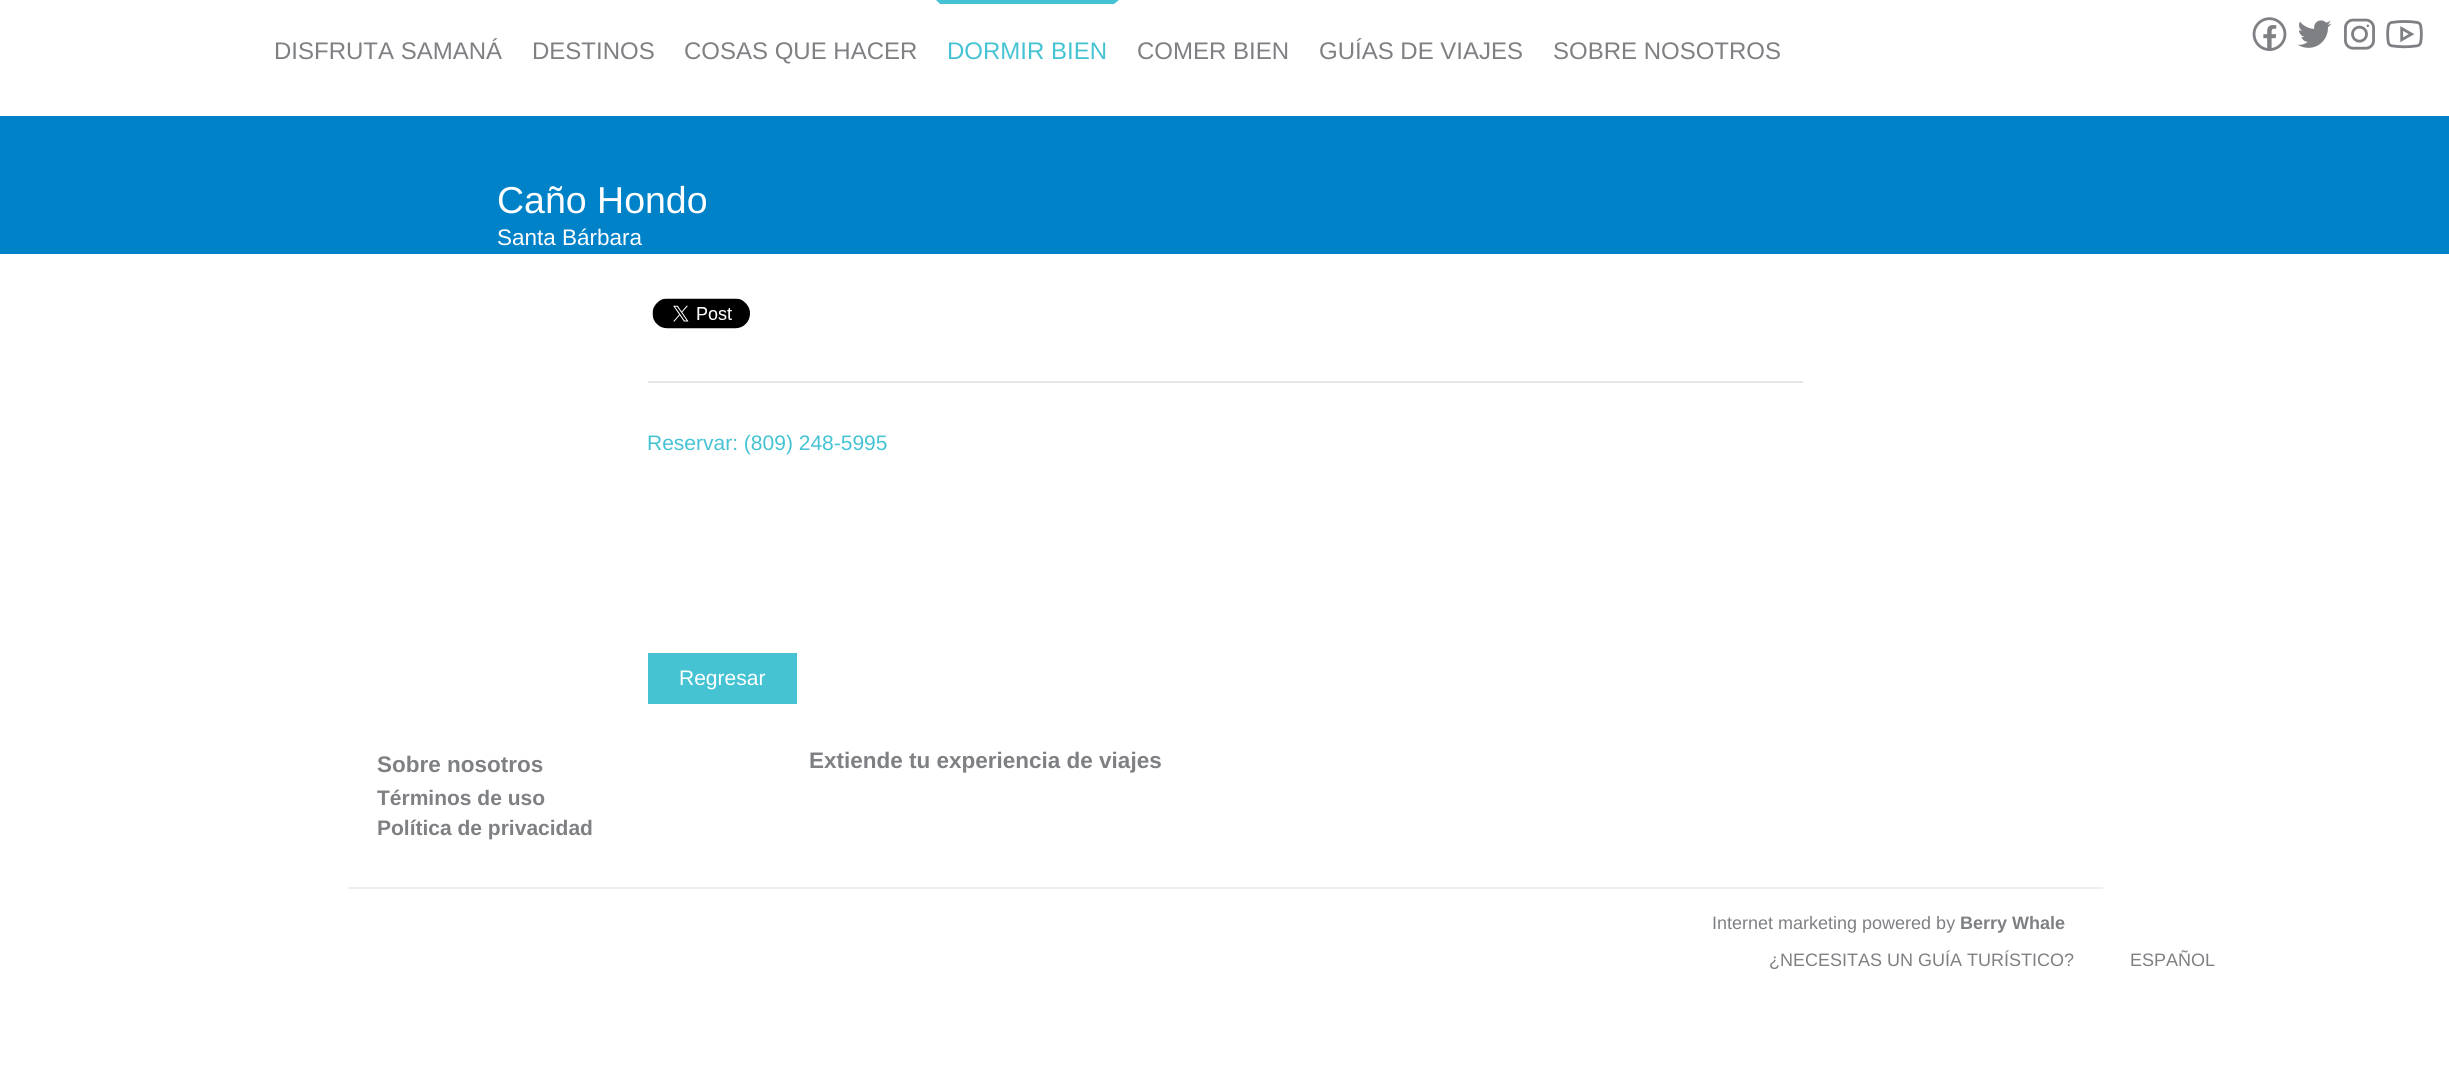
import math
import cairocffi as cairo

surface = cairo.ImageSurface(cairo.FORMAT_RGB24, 2449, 1072)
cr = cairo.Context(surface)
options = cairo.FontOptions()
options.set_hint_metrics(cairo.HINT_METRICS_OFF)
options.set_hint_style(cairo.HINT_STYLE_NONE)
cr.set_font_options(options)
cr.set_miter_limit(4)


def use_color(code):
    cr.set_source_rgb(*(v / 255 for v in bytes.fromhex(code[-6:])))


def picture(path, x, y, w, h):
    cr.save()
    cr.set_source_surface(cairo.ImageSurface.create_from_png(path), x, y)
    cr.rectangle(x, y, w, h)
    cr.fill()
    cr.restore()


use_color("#ffffff")
cr.paint()
cr.select_font_face("Liberation Sans")
cr.set_font_size(24)
use_color("#7e8083")
cr.move_to(274, 59)
cr.show_text("DISFRUTA SAMANÁ")
cr.move_to(532, 59)
cr.show_text("DESTINOS")
cr.move_to(684, 59)
cr.show_text("COSAS QUE HACER")
use_color("#45c3d3")
cr.new_path()
cr.move_to(936, 0)
cr.line_to(1119, 0)
cr.line_to(1114, 4)
cr.line_to(940, 4)
cr.close_path()
cr.fill()
cr.move_to(947, 59)
cr.show_text("DORMIR BIEN")
use_color("#7e8083")
cr.move_to(1137, 59)
cr.show_text("COMER BIEN")
cr.move_to(1319, 59)
cr.show_text("GUÍAS DE VIAJES")
cr.move_to(1553, 59)
cr.show_text("SOBRE NOSOTROS")
picture("img1.png", 2252, 17, 35, 34)
picture("img2.png", 2297, 20, 35, 28)
picture("img3.png", 2344, 18, 31, 32)
picture("img4.png", 2386, 20, 37, 29)
use_color("#0082c8")
cr.rectangle(0, 116, 2449, 138)
cr.fill()
cr.set_font_size(37.5)
use_color("#ffffff")
cr.move_to(497, 213)
cr.show_text("Caño Hondo")
cr.set_font_size(22.5)
cr.move_to(497, 245)
cr.show_text("Santa Bárbara")
picture("img5.png", 652, 298, 98, 31)
use_color("#e6e6e6")
cr.rectangle(648, 381, 1155, 2)
cr.fill()
cr.set_font_size(21)
use_color("#45c3d3")
cr.move_to(647, 450)
cr.show_text("Reservar: (809) 248-5995")
cr.rectangle(648, 653, 149, 51)
cr.fill()
use_color("#ffffff")
cr.move_to(679, 685)
cr.show_text("Regresar")
cr.select_font_face("Liberation Sans", cairo.FONT_SLANT_NORMAL, cairo.FONT_WEIGHT_BOLD)
cr.set_font_size(22.5)
use_color("#7e8083")
cr.move_to(377, 772)
cr.show_text("Sobre nosotros")
cr.set_font_size(21)
cr.move_to(377, 805)
cr.show_text("Términos de uso")
cr.move_to(377, 835)
cr.show_text("Política de privacidad")
cr.set_font_size(22.5)
cr.move_to(809, 768)
cr.show_text("Extiende tu experiencia de viajes")
use_color("#eeeeee")
cr.rectangle(348, 887, 1755, 2)
cr.fill()
cr.select_font_face("Liberation Sans")
cr.set_font_size(18)
use_color("#7e8083")
cr.move_to(1712, 929)
cr.show_text("Internet marketing powered by")
cr.select_font_face("Liberation Sans", cairo.FONT_SLANT_NORMAL, cairo.FONT_WEIGHT_BOLD)
cr.move_to(1960, 929)
cr.show_text("Berry Whale")
cr.select_font_face("Liberation Sans")
cr.move_to(1769, 966)
cr.show_text("¿NECESITAS UN GUÍA TURÍSTICO?")
cr.move_to(2130, 966)
cr.show_text("ESPAÑOL")
surface.write_to_png("result.png")
